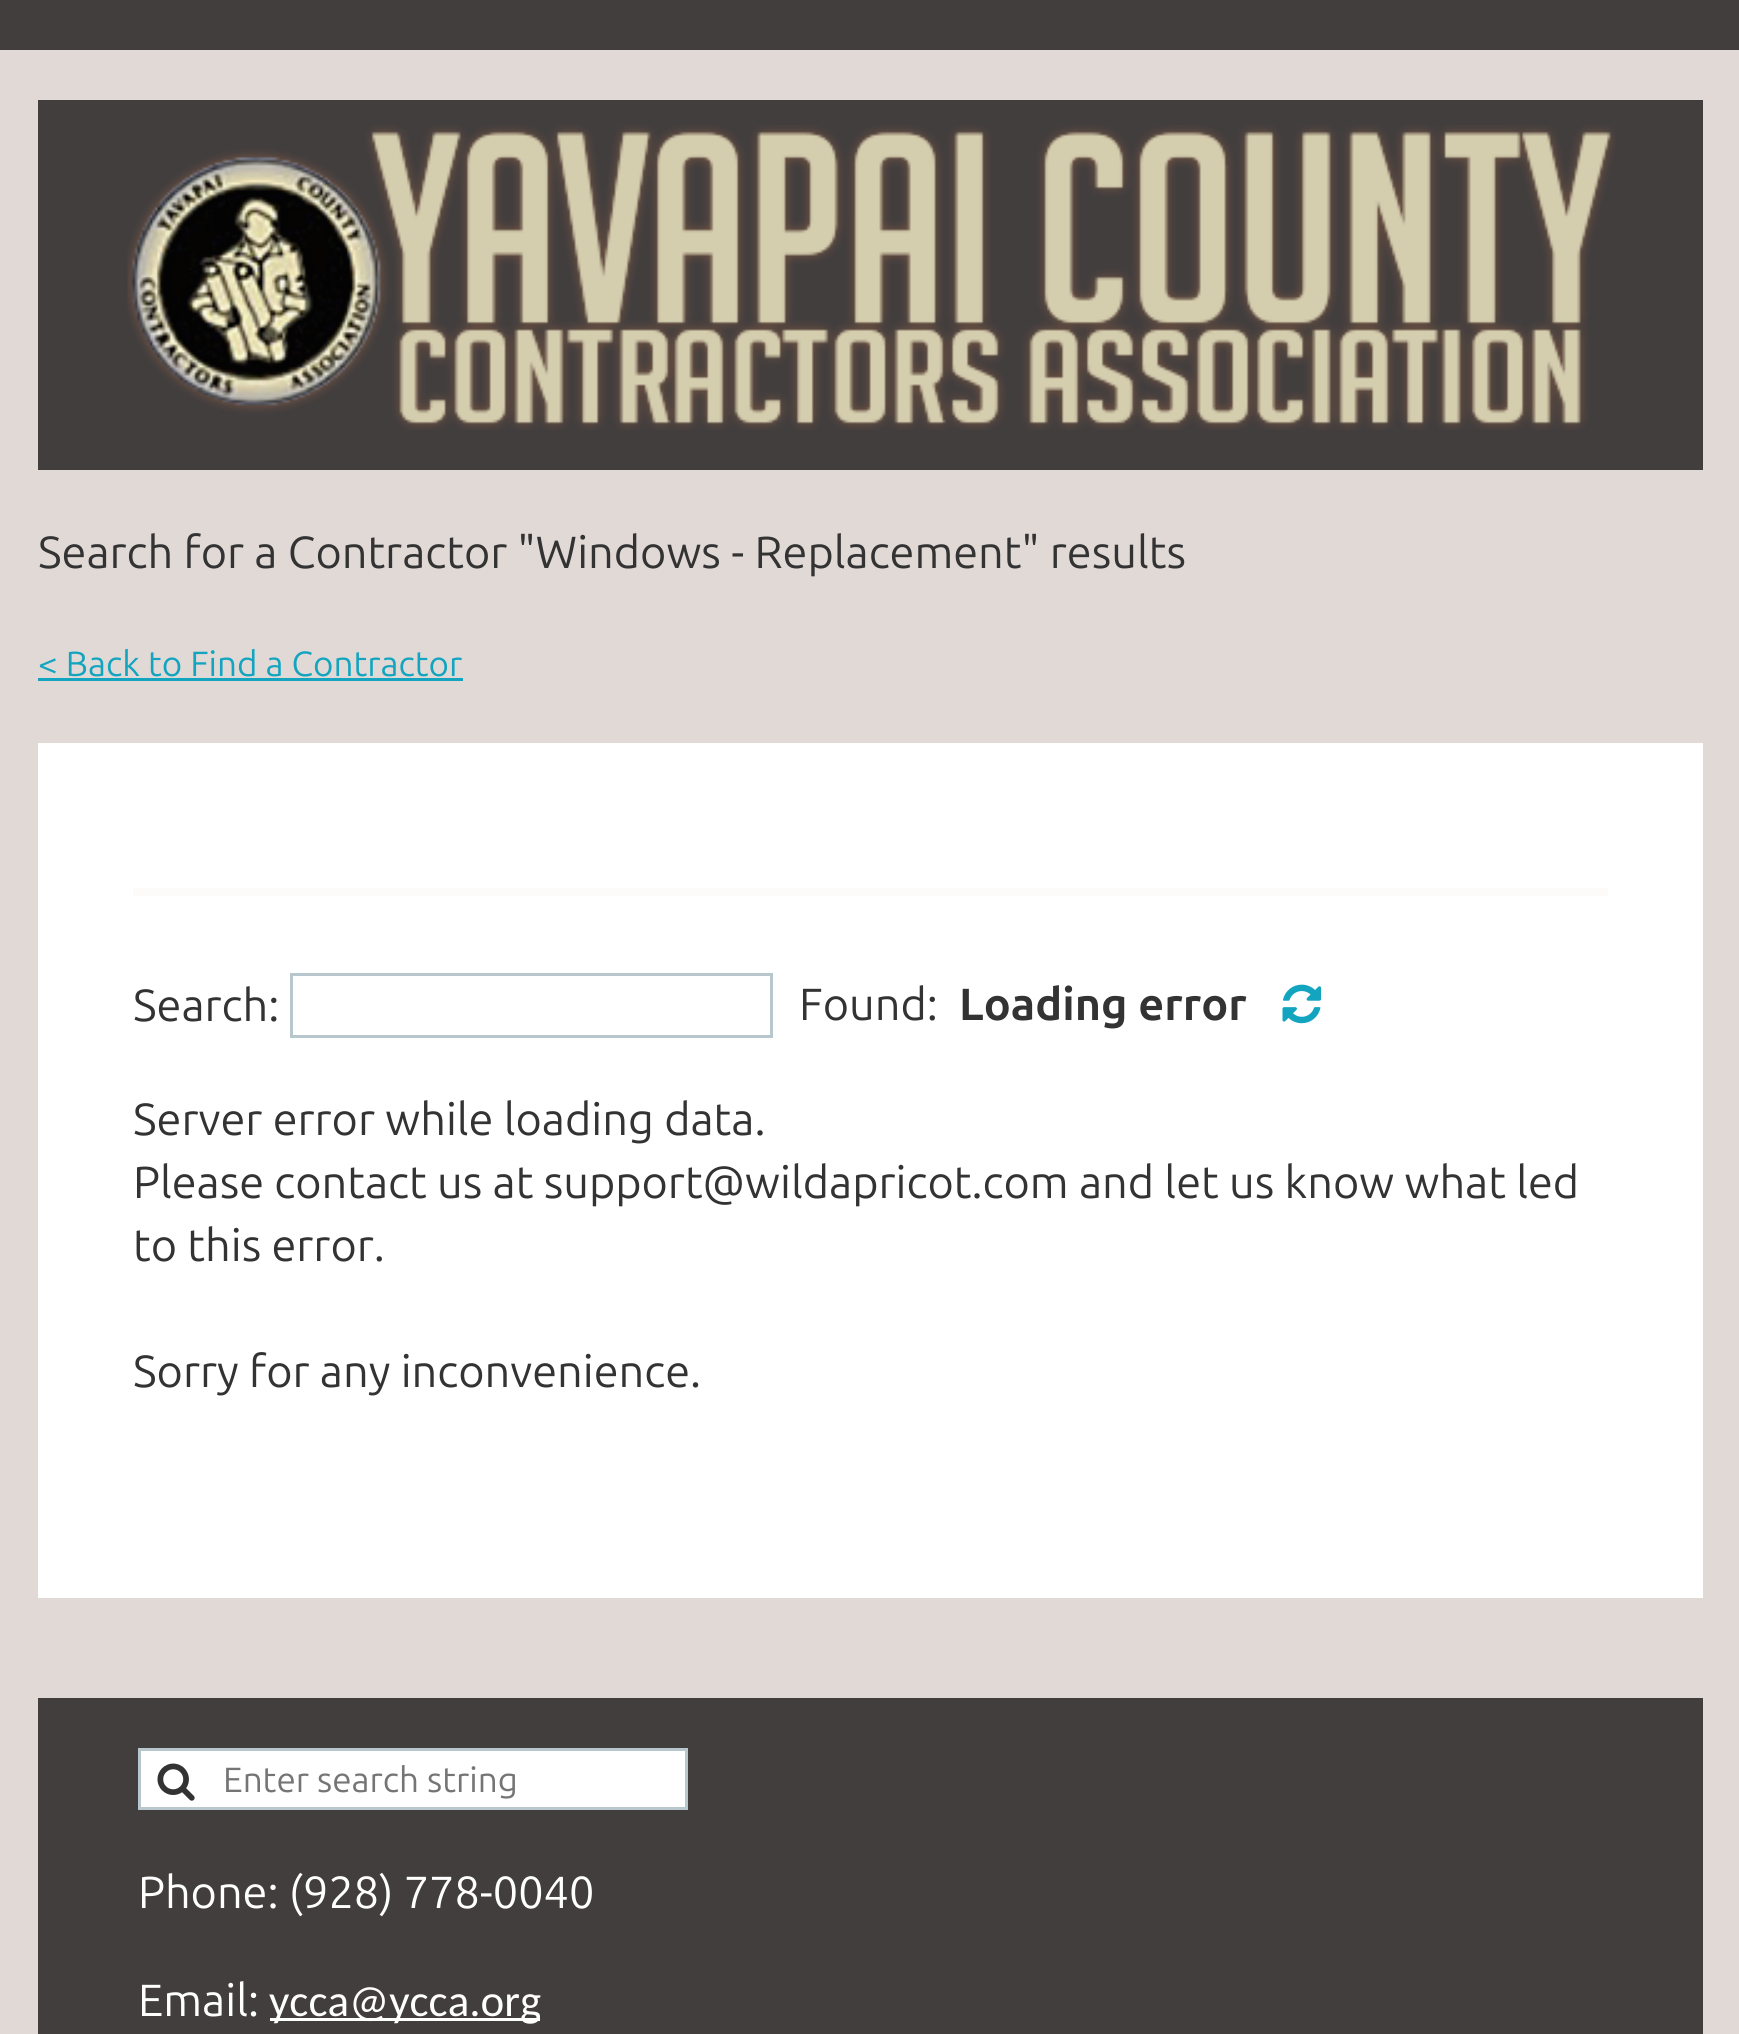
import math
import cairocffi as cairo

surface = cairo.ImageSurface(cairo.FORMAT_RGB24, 1739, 2034)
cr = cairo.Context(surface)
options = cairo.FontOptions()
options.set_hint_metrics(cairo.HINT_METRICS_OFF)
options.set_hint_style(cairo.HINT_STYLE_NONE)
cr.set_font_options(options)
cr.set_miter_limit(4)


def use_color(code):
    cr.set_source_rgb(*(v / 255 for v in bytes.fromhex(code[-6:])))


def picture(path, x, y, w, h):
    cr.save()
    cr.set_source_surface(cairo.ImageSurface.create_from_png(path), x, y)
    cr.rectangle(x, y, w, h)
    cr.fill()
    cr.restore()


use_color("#e1d9d6")
cr.paint()
use_color("#423e3e")
cr.rectangle(0, 0, 1739, 50)
cr.fill()
cr.rectangle(38, 100, 1665, 370)
cr.fill()
picture("img1.png", 127, 125, 1488, 305)
cr.select_font_face("Ubuntu")
cr.set_font_size(45)
use_color("#333333")
cr.move_to(38, 568)
cr.show_text("Search for a Contractor \"Windows - Replacement\" results")
cr.set_font_size(35)
use_color("#13a5bf")
cr.move_to(38, 676)
cr.show_text("< Back to Find a Contractor")
cr.rectangle(38, 678, 425, 3)
cr.fill()
use_color("#ffffff")
cr.rectangle(38, 743, 1665, 855)
cr.fill()
use_color("#fcfbfa")
cr.rectangle(133, 888, 1475, 8)
cr.fill()
cr.set_font_size(45)
use_color("#333333")
cr.move_to(133, 1021)
cr.show_text("Search:")
cr.rectangle(291.5, 974.5, 480, 62)
use_color("#b8c6cd")
cr.set_line_width(3)
cr.stroke()
use_color("#333333")
cr.move_to(799, 1020)
cr.show_text("Found:")
cr.select_font_face("Ubuntu", cairo.FONT_SLANT_NORMAL, cairo.FONT_WEIGHT_BOLD)
cr.move_to(959, 1020)
cr.show_text("Loading error")
picture("img2.png", 1282, 984, 40, 40)
cr.select_font_face("Ubuntu")
cr.move_to(133, 1135)
cr.show_text("Server error while loading data.")
cr.move_to(133, 1198)
cr.show_text("Please contact us at support@wildapricot.com and let us know what led")
cr.move_to(133, 1261)
cr.show_text("to this error.")
cr.move_to(133, 1387)
cr.show_text("Sorry for any inconvenience.")
use_color("#423e3e")
cr.rectangle(38, 1698, 1665, 336)
cr.fill()
use_color("#ffffff")
cr.rectangle(139.5, 1749.5, 547, 59)
cr.fill_preserve()
use_color("#b8c6cd")
cr.stroke()
picture("img3.png", 157, 1763, 38, 38)
cr.set_font_size(35)
use_color("#757575")
cr.move_to(223, 1792)
cr.show_text("Enter search string")
cr.set_font_size(45)
use_color("#ffffff")
cr.move_to(138, 1908)
cr.show_text("Phone: (928) 778-0040")
cr.move_to(138, 2016)
cr.show_text("Email:")
cr.rectangle(270, 2018, 270, 3)
cr.fill()
cr.select_font_face("Carlito")
cr.move_to(269, 2016)
cr.show_text("ycca@ycca.org")
surface.write_to_png("result.png")
